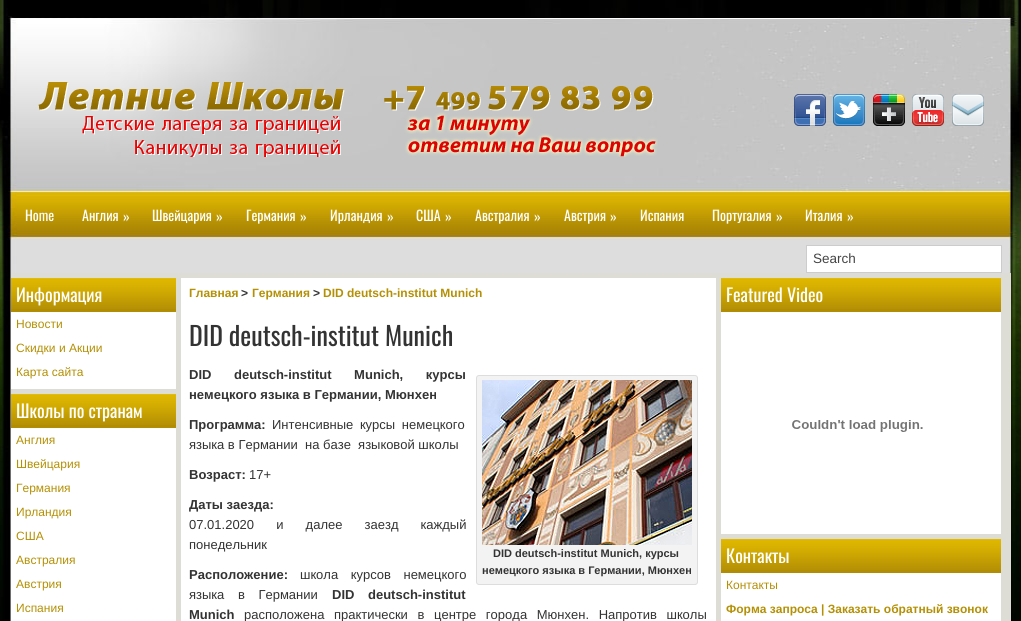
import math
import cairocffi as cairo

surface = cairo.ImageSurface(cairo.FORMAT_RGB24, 1021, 621)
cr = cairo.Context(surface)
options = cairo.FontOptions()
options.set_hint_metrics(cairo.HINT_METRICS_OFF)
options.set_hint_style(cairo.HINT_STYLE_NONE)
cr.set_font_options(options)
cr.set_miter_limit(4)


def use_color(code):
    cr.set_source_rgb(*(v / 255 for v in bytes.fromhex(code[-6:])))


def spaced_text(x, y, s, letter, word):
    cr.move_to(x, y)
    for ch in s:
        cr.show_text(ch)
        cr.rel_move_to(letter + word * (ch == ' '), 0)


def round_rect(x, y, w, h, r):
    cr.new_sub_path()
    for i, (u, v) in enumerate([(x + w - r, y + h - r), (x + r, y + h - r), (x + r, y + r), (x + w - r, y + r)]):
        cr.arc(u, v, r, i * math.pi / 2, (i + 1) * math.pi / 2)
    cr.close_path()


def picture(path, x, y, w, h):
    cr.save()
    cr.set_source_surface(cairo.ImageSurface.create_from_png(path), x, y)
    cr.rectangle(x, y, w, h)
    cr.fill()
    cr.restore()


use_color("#ffffff")
cr.paint()
picture("img1.png", 0, 0, 1021, 285)
picture("img2.png", 0, 285, 1021, 336)
picture("img3.png", 38, 82, 620, 75)
picture("img4.png", 794, 94, 32, 32)
picture("img5.png", 833, 94, 32, 32)
picture("img6.png", 873, 94, 32, 32)
picture("img7.png", 912, 94, 32, 32)
picture("img8.png", 952, 94, 32, 32)
cr.select_font_face("Oswald")
cr.set_font_size(14)
use_color("#ffffff")
cr.move_to(25, 221)
cr.show_text("Home")
cr.move_to(82, 221)
cr.show_text("Англия")
cr.move_to(123, 222)
cr.show_text("»")
cr.move_to(152, 221)
cr.show_text("Швейцария")
cr.move_to(216, 222)
cr.show_text("»")
cr.move_to(246, 221)
cr.show_text("Германия")
cr.move_to(300, 222)
cr.show_text("»")
cr.move_to(330, 221)
cr.show_text("Ирландия")
cr.move_to(387, 222)
cr.show_text("»")
cr.move_to(416, 221)
cr.show_text("США")
cr.move_to(445, 222)
cr.show_text("»")
cr.move_to(475, 221)
cr.show_text("Австралия")
cr.move_to(534, 222)
cr.show_text("»")
cr.move_to(564, 221)
cr.show_text("Австрия")
cr.move_to(610, 222)
cr.show_text("»")
cr.move_to(640, 221)
cr.show_text("Испания")
cr.move_to(712, 221)
cr.show_text("Португалия")
cr.move_to(776, 222)
cr.show_text("»")
cr.move_to(805, 221)
cr.show_text("Италия")
cr.move_to(847, 222)
cr.show_text("»")
cr.rectangle(806.5, 245.5, 195, 27)
cr.fill_preserve()
use_color("#cccccc")
cr.set_line_width(1)
cr.stroke()
cr.select_font_face("Liberation Sans")
cr.set_font_size(13.5)
use_color("#444444")
cr.move_to(813, 263)
cr.show_text("Search")
use_color("#ddddd5")
cr.rectangle(11, 273, 1000, 348)
cr.fill()
use_color("#ffffff")
cr.rectangle(11, 312, 165, 77)
cr.fill()
use_color("#b18d03")
cr.rectangle(11, 309, 165, 3)
cr.fill()
picture("img9.png", 11, 278, 165, 31)
cr.select_font_face("Oswald")
cr.set_font_size(18)
use_color("#ffffff")
cr.move_to(16, 302)
cr.show_text("Информация")
cr.select_font_face("Liberation Sans")
cr.set_font_size(12)
use_color("#b49004")
cr.move_to(16, 328)
cr.show_text("Новости")
cr.move_to(16, 352)
cr.show_text("Скидки и Акции")
cr.move_to(16, 376)
cr.show_text("Карта сайта")
use_color("#ffffff")
cr.rectangle(11, 428, 165, 193)
cr.fill()
use_color("#b18d03")
cr.rectangle(11, 425, 165, 3)
cr.fill()
picture("img9.png", 11, 394, 165, 31)
cr.select_font_face("Oswald")
cr.set_font_size(18)
use_color("#ffffff")
cr.move_to(16, 418)
cr.show_text("Школы по странам")
cr.select_font_face("Liberation Sans")
cr.set_font_size(12)
use_color("#b49004")
cr.move_to(16, 444)
cr.show_text("Англия")
cr.move_to(16, 468)
cr.show_text("Швейцария")
cr.move_to(16, 492)
cr.show_text("Германия")
cr.move_to(16, 516)
cr.show_text("Ирландия")
cr.move_to(16, 540)
cr.show_text("США")
cr.move_to(16, 564)
cr.show_text("Австралия")
cr.move_to(16, 588)
cr.show_text("Австрия")
cr.move_to(16, 612)
cr.show_text("Испания")
use_color("#ffffff")
cr.rectangle(181, 278, 535, 343)
cr.fill()
cr.select_font_face("Liberation Sans", cairo.FONT_SLANT_NORMAL, cairo.FONT_WEIGHT_BOLD)
use_color("#b49004")
cr.move_to(189, 297)
cr.show_text("Главная")
use_color("#333333")
cr.move_to(241, 297)
cr.show_text(">")
use_color("#b49004")
cr.move_to(252, 297)
cr.show_text("Германия")
use_color("#333333")
cr.move_to(313, 297)
cr.show_text(">")
use_color("#b49004")
cr.move_to(323, 297)
cr.show_text("DID deutsch-institut Munich")
cr.select_font_face("Oswald")
cr.set_font_size(26)
use_color("#333333")
cr.move_to(189, 346)
cr.show_text("DID deutsch-institut Munich")
cr.select_font_face("Liberation Sans", cairo.FONT_SLANT_NORMAL, cairo.FONT_WEIGHT_BOLD)
cr.set_font_size(13)
spaced_text(189, 379, "DID deutsch-institut Munich, курсы", 0, 19)
cr.move_to(189, 399)
cr.show_text("немецкого языка в Германии, Мюнхен")
cr.move_to(189, 429)
cr.show_text("Программа:")
cr.select_font_face("Liberation Sans")
spaced_text(272, 429, "Интенсивные курсы немецкого", 0, 3)
cr.move_to(189, 449)
cr.show_text("языка в Германии  на базе  языковой школы")
cr.select_font_face("Liberation Sans", cairo.FONT_SLANT_NORMAL, cairo.FONT_WEIGHT_BOLD)
cr.move_to(189, 479)
cr.show_text("Возраст:")
cr.select_font_face("Liberation Sans")
cr.move_to(249, 479)
cr.show_text("17+")
cr.select_font_face("Liberation Sans", cairo.FONT_SLANT_NORMAL, cairo.FONT_WEIGHT_BOLD)
cr.move_to(189, 509)
cr.show_text("Даты заезда:")
cr.select_font_face("Liberation Sans")
spaced_text(189, 529, "07.01.2020 и далее заезд каждый", 0, 18.5)
cr.move_to(189, 549)
cr.show_text("понедельник")
use_color("#f3f3f3")
round_rect(476.5, 375.5, 221, 209, 2.5)
cr.fill_preserve()
use_color("#dddddd")
cr.stroke()
picture("img10.png", 482, 380, 210, 165)
cr.select_font_face("Liberation Sans", cairo.FONT_SLANT_NORMAL, cairo.FONT_WEIGHT_BOLD)
cr.set_font_size(11)
use_color("#333333")
cr.move_to(493, 557)
cr.show_text("DID deutsch-institut Munich, курсы")
cr.move_to(482, 574)
cr.show_text("немецкого языка в Германии, Мюнхен")
cr.set_font_size(13)
cr.move_to(189, 579)
cr.show_text("Расположение:")
cr.select_font_face("Liberation Sans")
spaced_text(300, 579, "школа курсов немецкого", 0, 9)
spaced_text(189, 599, "языка в Германии", 0, 10)
cr.select_font_face("Liberation Sans", cairo.FONT_SLANT_NORMAL, cairo.FONT_WEIGHT_BOLD)
spaced_text(332, 599, "DID deutsch-institut", 0, 10)
cr.move_to(189, 619)
cr.show_text("Munich")
cr.select_font_face("Liberation Sans")
spaced_text(244, 619, "расположена практически в центре города Мюнхен. Напротив школы", 0, 6)
use_color("#ffffff")
cr.rectangle(721, 312, 280, 222)
cr.fill()
use_color("#b18d03")
cr.rectangle(721, 309, 280, 3)
cr.fill()
picture("img11.png", 721, 278, 280, 31)
cr.select_font_face("Oswald")
cr.set_font_size(18)
use_color("#ffffff")
cr.move_to(726, 302)
cr.show_text("Featured Video")
picture("img12.png", 792, 420, 131, 12)
cr.rectangle(721, 573, 280, 48)
cr.fill()
use_color("#b18d03")
cr.rectangle(721, 570, 280, 3)
cr.fill()
picture("img11.png", 721, 539, 280, 31)
use_color("#ffffff")
cr.move_to(726, 563)
cr.show_text("Контакты")
cr.select_font_face("Liberation Sans")
cr.set_font_size(12)
use_color("#b49004")
cr.move_to(726, 589)
cr.show_text("Контакты")
cr.select_font_face("Liberation Sans", cairo.FONT_SLANT_NORMAL, cairo.FONT_WEIGHT_BOLD)
cr.move_to(726, 613)
cr.show_text("Форма запроса | Заказать обратный звонок")
surface.write_to_png("result.png")
